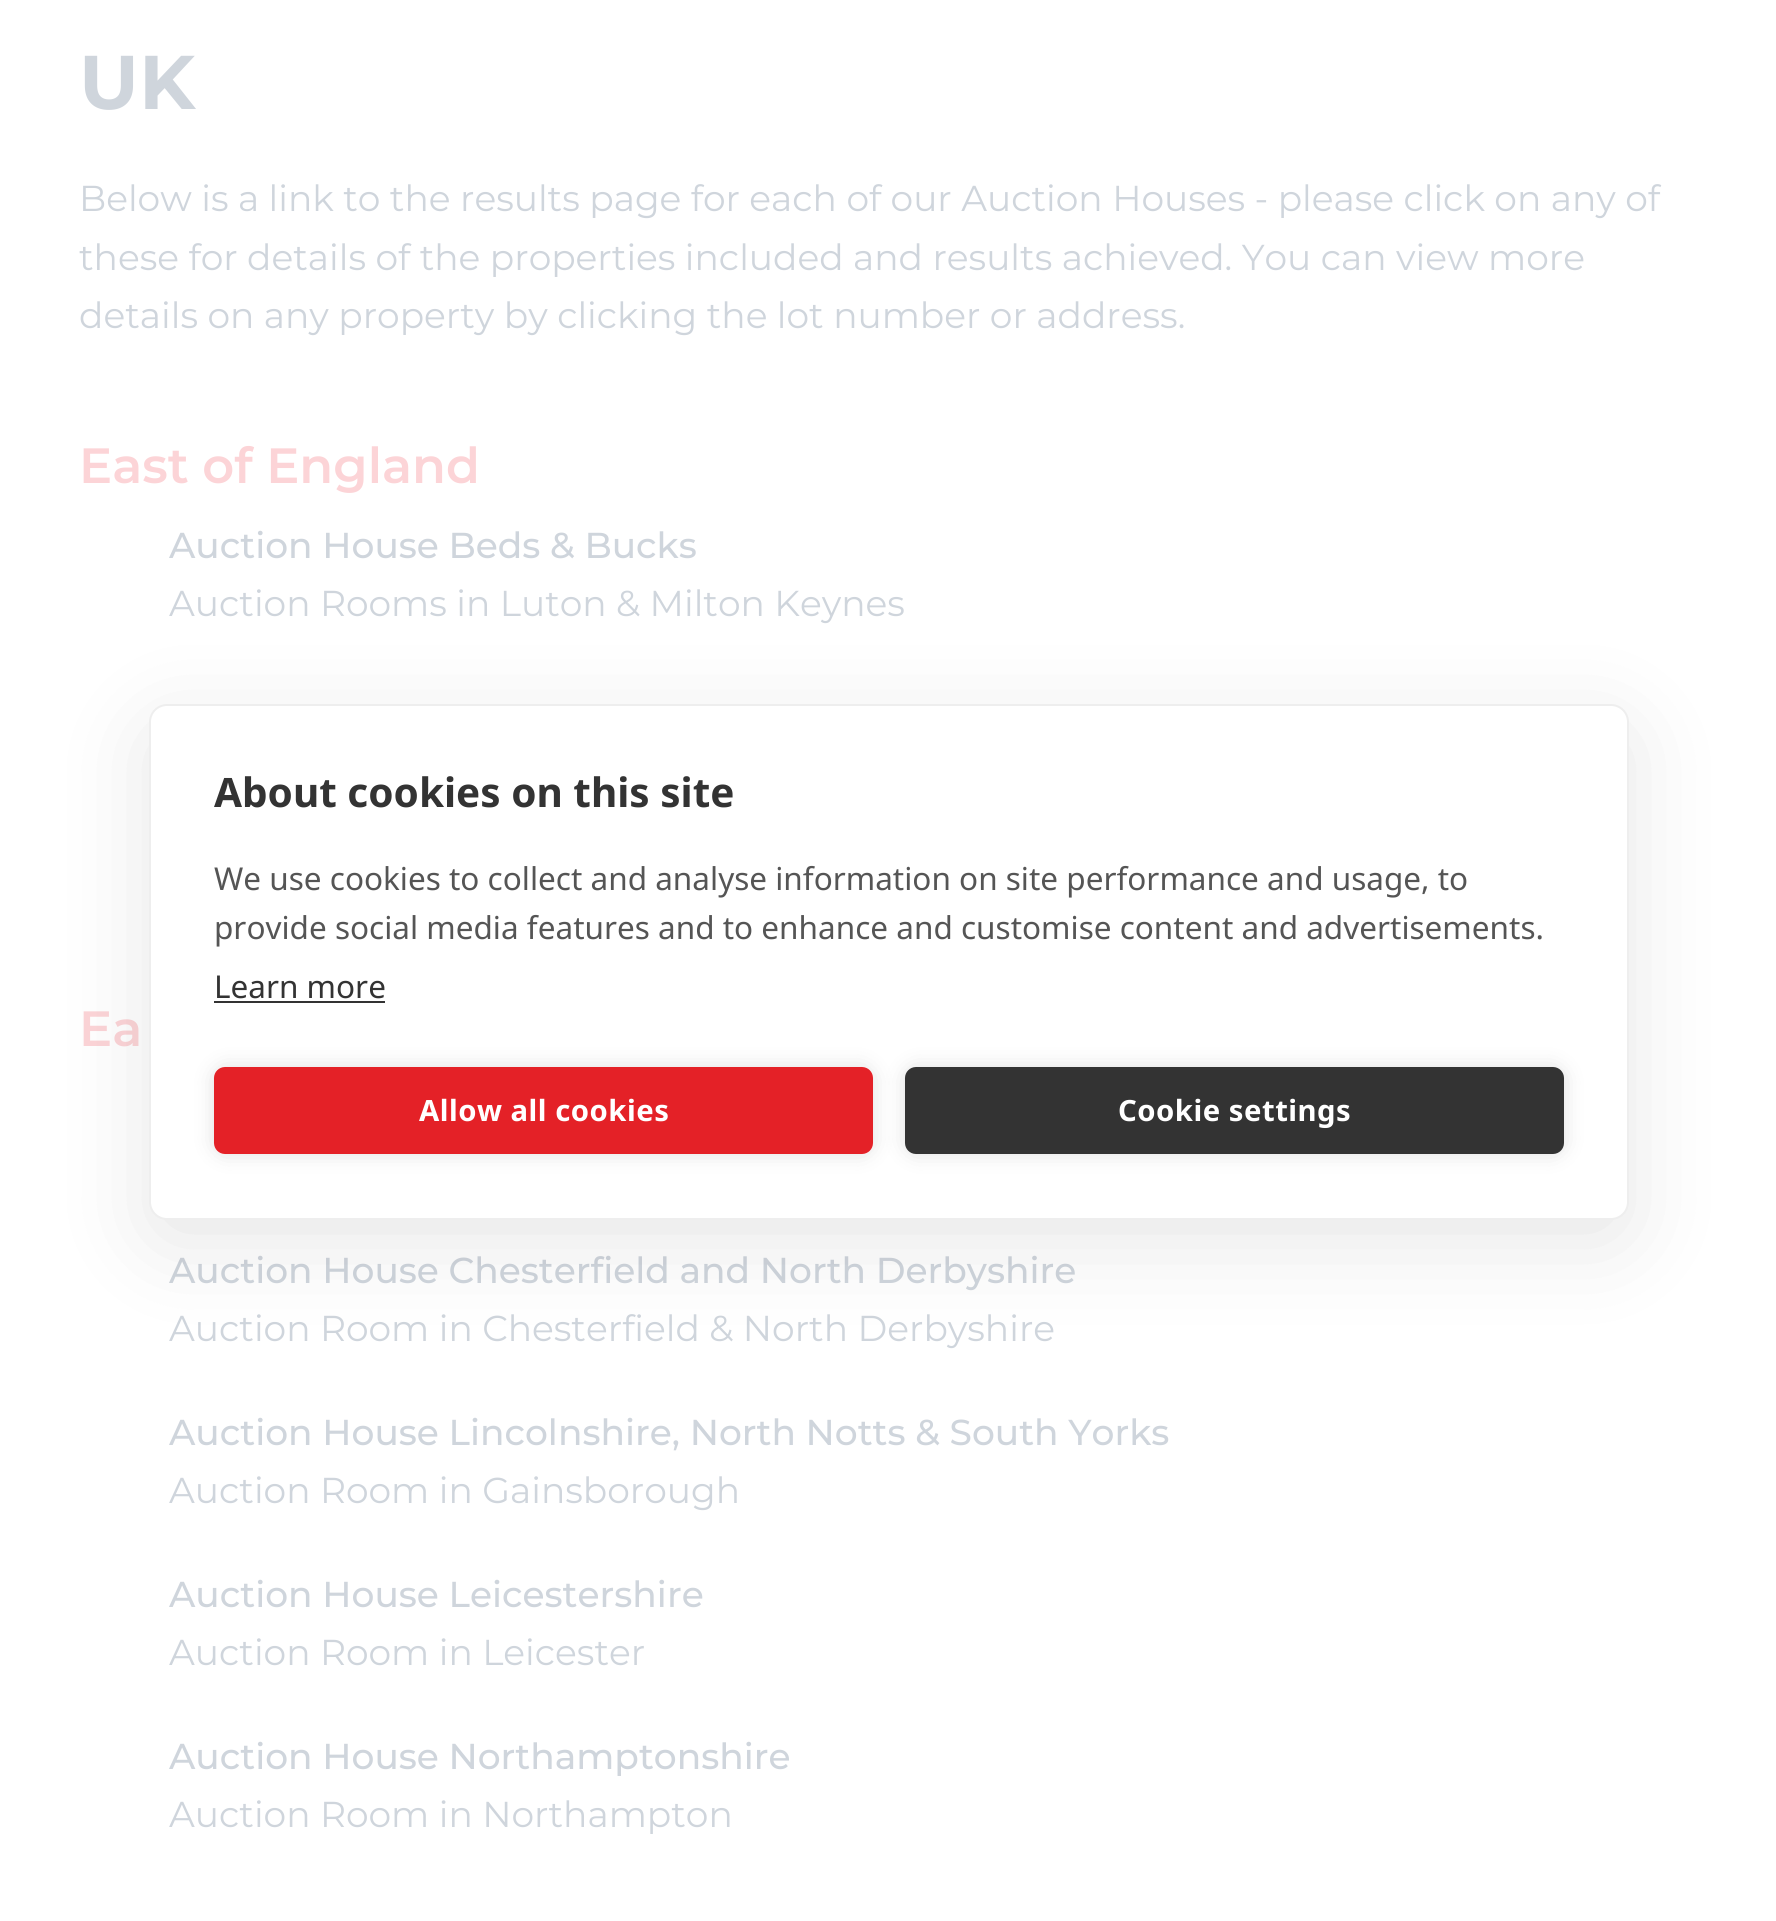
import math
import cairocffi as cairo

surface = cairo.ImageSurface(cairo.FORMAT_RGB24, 1776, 1921)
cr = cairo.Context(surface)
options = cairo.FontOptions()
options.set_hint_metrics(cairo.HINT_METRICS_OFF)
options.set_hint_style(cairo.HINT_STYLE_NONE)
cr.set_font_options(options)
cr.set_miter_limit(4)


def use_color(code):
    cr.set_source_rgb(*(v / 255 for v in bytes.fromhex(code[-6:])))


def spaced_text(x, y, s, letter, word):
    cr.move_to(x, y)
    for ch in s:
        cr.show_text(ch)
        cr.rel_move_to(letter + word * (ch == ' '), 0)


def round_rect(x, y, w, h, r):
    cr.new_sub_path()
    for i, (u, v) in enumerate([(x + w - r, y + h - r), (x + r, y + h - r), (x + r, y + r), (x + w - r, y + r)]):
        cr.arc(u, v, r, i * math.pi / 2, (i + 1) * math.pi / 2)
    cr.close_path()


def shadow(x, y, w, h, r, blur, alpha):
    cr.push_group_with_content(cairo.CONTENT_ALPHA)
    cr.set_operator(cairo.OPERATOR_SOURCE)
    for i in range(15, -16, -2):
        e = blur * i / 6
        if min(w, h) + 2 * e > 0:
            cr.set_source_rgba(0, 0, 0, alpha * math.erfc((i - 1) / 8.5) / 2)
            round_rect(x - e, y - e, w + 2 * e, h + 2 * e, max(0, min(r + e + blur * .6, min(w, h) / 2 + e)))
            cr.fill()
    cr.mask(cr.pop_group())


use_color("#ffffff")
cr.paint()
cr.select_font_face("Montserrat", cairo.FONT_SLANT_NORMAL, cairo.FONT_WEIGHT_BOLD)
cr.set_font_size(76)
use_color("#cfd5dc")
cr.move_to(79, 109)
cr.show_text("UK")
cr.select_font_face("Montserrat")
cr.set_font_size(36)
cr.move_to(79, 211)
cr.show_text("Below is a link to the results page for each of our Auction Houses - please click on any of")
cr.move_to(79, 270)
cr.show_text("these for details of the properties included and results achieved. You can view more")
cr.move_to(79, 328)
cr.show_text("details on any property by clicking the lot number or address.")
cr.select_font_face("Montserrat SemiBold")
cr.set_font_size(49.5)
use_color("#fcd4d7")
cr.move_to(79, 483)
cr.show_text("East of England")
cr.select_font_face("Montserrat Medium")
cr.set_font_size(36)
use_color("#cfd5dc")
cr.move_to(169, 558)
cr.show_text("Auction House Beds & Bucks")
cr.select_font_face("Montserrat")
cr.move_to(169, 616)
cr.show_text("Auction Rooms in Luton & Milton Keynes")
cr.select_font_face("Montserrat SemiBold")
cr.set_font_size(49.5)
use_color("#fcd4d7")
cr.move_to(79, 1046)
cr.show_text("Ea")
cr.select_font_face("Montserrat Medium")
cr.set_font_size(36)
use_color("#cfd5dc")
cr.move_to(169, 1283)
cr.show_text("Auction House Chesterfield and North Derbyshire")
cr.select_font_face("Montserrat")
cr.move_to(169, 1341)
cr.show_text("Auction Room in Chesterfield & North Derbyshire")
cr.select_font_face("Montserrat Medium")
cr.move_to(169, 1445)
cr.show_text("Auction House Lincolnshire, North Notts & South Yorks")
cr.select_font_face("Montserrat")
cr.move_to(169, 1503)
cr.show_text("Auction Room in Gainsborough")
cr.select_font_face("Montserrat Medium")
cr.move_to(169, 1607)
cr.show_text("Auction House Leicestershire")
cr.select_font_face("Montserrat")
cr.move_to(169, 1665)
cr.show_text("Auction Room in Leicester")
cr.select_font_face("Montserrat Medium")
cr.move_to(169, 1769)
cr.show_text("Auction House Northamptonshire")
cr.select_font_face("Montserrat")
cr.move_to(169, 1827)
cr.show_text("Auction Room in Northampton")
use_color("#000000")
shadow(149, 727, 1480, 515, 18, 45, 0.1)
use_color("#ffffff")
round_rect(150, 705, 1478, 514, 17)
cr.fill_preserve()
use_color("#eeeeee")
cr.stroke()
cr.select_font_face("Noto Sans", cairo.FONT_SLANT_NORMAL, cairo.FONT_WEIGHT_BOLD)
cr.set_font_size(40.5)
use_color("#333333")
cr.move_to(214, 807)
cr.show_text("About cookies on this site")
cr.select_font_face("Noto Sans")
cr.set_font_size(31.5)
use_color("#555555")
cr.move_to(214, 890)
cr.show_text("We use cookies to collect and analyse information on site performance and usage, to")
cr.move_to(214, 939)
cr.show_text("provide social media features and to enhance and customise content and advertisements.")
use_color("#333333")
cr.move_to(214, 998)
cr.show_text("Learn more")
cr.rectangle(214, 1001, 171, 2)
cr.fill()
cr.save()
cr.set_fill_rule(cairo.FILL_RULE_EVEN_ODD)
cr.new_path()
cr.move_to(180, 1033)
cr.line_to(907, 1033)
cr.line_to(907, 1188)
cr.line_to(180, 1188)
cr.close_path()
cr.move_to(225, 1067)
cr.line_to(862, 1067)
cr.curve_to(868, 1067, 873, 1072, 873, 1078)
cr.line_to(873, 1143)
cr.curve_to(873, 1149, 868, 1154, 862, 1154)
cr.line_to(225, 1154)
cr.curve_to(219, 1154, 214, 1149, 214, 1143)
cr.line_to(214, 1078)
cr.curve_to(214, 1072, 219, 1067, 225, 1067)
cr.close_path()
cr.clip()
use_color("#000000")
shadow(214, 1067, 659, 87, 11, 11, 0.12)
cr.restore()
use_color("#e42127")
round_rect(214, 1067, 659, 87, 11)
cr.fill()
cr.select_font_face("Noto Sans", cairo.FONT_SLANT_NORMAL, cairo.FONT_WEIGHT_BOLD)
cr.set_font_size(29.25)
use_color("#ffffff")
spaced_text(419, 1121, "Allow all cookies", 0.5, 0)
cr.save()
cr.set_fill_rule(cairo.FILL_RULE_EVEN_ODD)
cr.new_path()
cr.move_to(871, 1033)
cr.line_to(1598, 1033)
cr.line_to(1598, 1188)
cr.line_to(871, 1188)
cr.close_path()
cr.move_to(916, 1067)
cr.line_to(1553, 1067)
cr.curve_to(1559, 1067, 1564, 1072, 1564, 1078)
cr.line_to(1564, 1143)
cr.curve_to(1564, 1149, 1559, 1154, 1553, 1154)
cr.line_to(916, 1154)
cr.curve_to(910, 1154, 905, 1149, 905, 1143)
cr.line_to(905, 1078)
cr.curve_to(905, 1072, 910, 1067, 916, 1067)
cr.close_path()
cr.clip()
use_color("#000000")
shadow(905, 1067, 659, 87, 11, 11, 0.12)
cr.restore()
use_color("#333333")
round_rect(905, 1067, 659, 87, 11)
cr.fill()
use_color("#ffffff")
spaced_text(1118, 1121, "Cookie settings", 0.5, 0)
surface.write_to_png("result.png")
